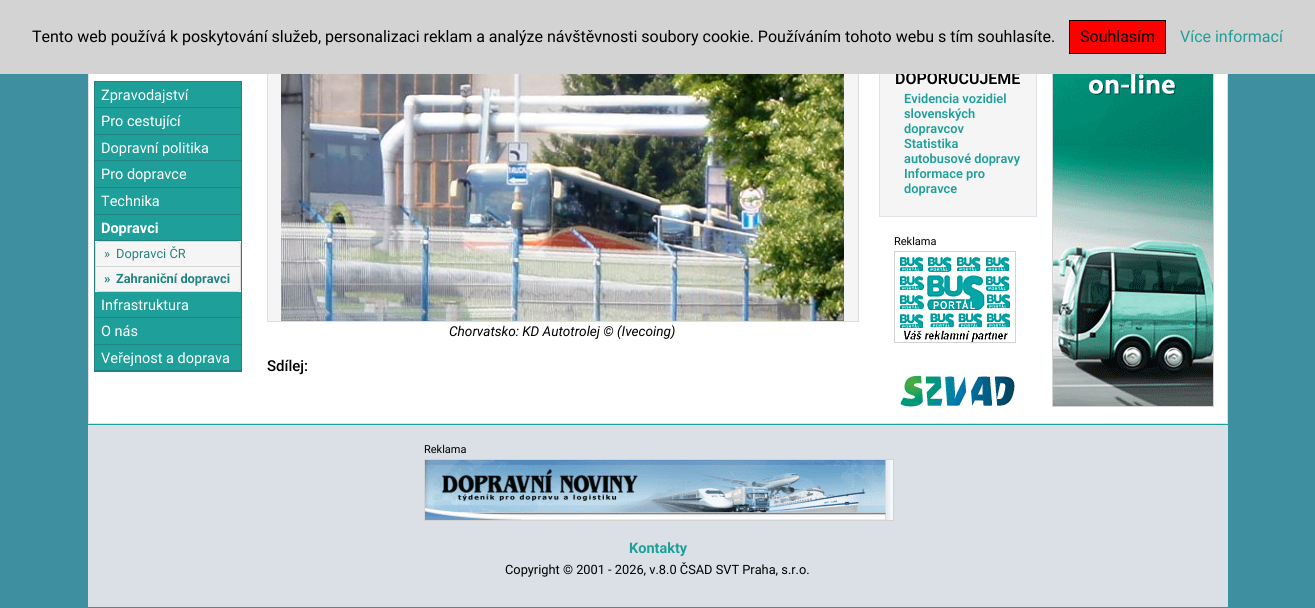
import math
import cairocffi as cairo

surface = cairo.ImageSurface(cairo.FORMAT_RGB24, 1315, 608)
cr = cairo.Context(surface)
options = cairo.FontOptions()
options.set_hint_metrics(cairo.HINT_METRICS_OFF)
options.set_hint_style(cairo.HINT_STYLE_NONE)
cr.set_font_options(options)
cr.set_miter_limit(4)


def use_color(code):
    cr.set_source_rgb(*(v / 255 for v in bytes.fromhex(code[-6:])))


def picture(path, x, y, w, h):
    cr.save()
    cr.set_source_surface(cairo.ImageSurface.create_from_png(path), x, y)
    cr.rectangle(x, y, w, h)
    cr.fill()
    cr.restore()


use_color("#3e8f9f")
cr.paint()
use_color("#ffffff")
cr.rectangle(89, 74, 1138, 349)
cr.fill()
cr.rectangle(88.5, -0.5, 1139, 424)
use_color("#dee2e6")
cr.set_line_width(1)
cr.stroke()
use_color("#f5f5f5")
cr.rectangle(268, 74, 590, 247)
cr.fill()
cr.rectangle(267.5, -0.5, 591, 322)
use_color("#dddddd")
cr.stroke()
use_color("#f5f5f5")
cr.rectangle(880, 74, 156, 142)
cr.fill()
cr.rectangle(879.5, 65.5, 157, 151)
use_color("#dee2e6")
cr.stroke()
cr.select_font_face("Roboto SemiBold")
cr.set_font_size(16)
use_color("#000000")
cr.move_to(895, 84)
cr.show_text("DOPORUČUJEME")
cr.rectangle(1052.5, -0.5, 161, 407)
use_color("#d3d3d3")
cr.stroke()
cr.rectangle(0, 0, 1315, 74)
cr.fill()
cr.select_font_face("Roboto")
use_color("#000000")
cr.move_to(32, 42)
cr.show_text("Tento web používá k poskytování služeb, personalizaci reklam a analýze návštěvnosti soubory cookie. Používáním tohoto webu s tím souhlasíte.")
use_color("#ff0000")
cr.rectangle(1069.5, 20.5, 96, 33)
cr.fill_preserve()
use_color("#000000")
cr.stroke()
cr.move_to(1080, 42)
cr.show_text("Souhlasím")
use_color("#1e9f9a")
cr.move_to(1180, 42)
cr.show_text("Více informací")
cr.rectangle(94.5, 81.5, 147, 290)
use_color("#23827f")
cr.stroke()
use_color("#1e9f9a")
cr.rectangle(95, 82, 146, 25)
cr.fill()
use_color("#23827f")
cr.rectangle(95, 107, 146, 1)
cr.fill()
cr.set_font_size(14.5)
use_color("#ffffff")
cr.move_to(101, 100)
cr.show_text("Zpravodajství")
use_color("#1e9f9a")
cr.rectangle(95, 108, 146, 26)
cr.fill()
use_color("#23827f")
cr.rectangle(95, 134, 146, 1)
cr.fill()
use_color("#ffffff")
cr.move_to(101, 126)
cr.show_text("Pro cestující")
use_color("#1e9f9a")
cr.rectangle(95, 135, 146, 25)
cr.fill()
use_color("#23827f")
cr.rectangle(95, 160, 146, 1)
cr.fill()
use_color("#ffffff")
cr.move_to(101, 153)
cr.show_text("Dopravní politika")
use_color("#1e9f9a")
cr.rectangle(95, 161, 146, 26)
cr.fill()
use_color("#23827f")
cr.rectangle(95, 187, 146, 1)
cr.fill()
use_color("#ffffff")
cr.move_to(101, 179)
cr.show_text("Pro dopravce")
use_color("#1e9f9a")
cr.rectangle(95, 188, 146, 26)
cr.fill()
use_color("#23827f")
cr.rectangle(95, 214, 146, 1)
cr.fill()
use_color("#ffffff")
cr.move_to(101, 206)
cr.show_text("Technika")
use_color("#1e9f9a")
cr.rectangle(95, 215, 146, 25)
cr.fill()
use_color("#23827f")
cr.rectangle(95, 240, 146, 1)
cr.fill()
cr.select_font_face("Roboto", cairo.FONT_SLANT_NORMAL, cairo.FONT_WEIGHT_BOLD)
use_color("#ffffff")
cr.move_to(101, 233)
cr.show_text("Dopravci")
use_color("#f5f5f5")
cr.new_path()
cr.move_to(99, 241)
cr.line_to(237, 241)
cr.curve_to(239, 241, 241, 243, 241, 245)
cr.line_to(241, 267)
cr.line_to(95, 267)
cr.line_to(95, 245)
cr.curve_to(95, 243, 97, 241, 99, 241)
cr.close_path()
cr.fill()
cr.new_path()
cr.move_to(99, 241.5)
cr.line_to(237, 241.5)
cr.curve_to(239, 241.5, 240.5, 243, 240.5, 245)
cr.line_to(240.5, 266.5)
cr.line_to(95.5, 266.5)
cr.line_to(95.5, 245)
cr.curve_to(95.5, 243, 97, 241.5, 99, 241.5)
cr.close_path()
cr.set_source_rgba(0, 0, 0, 0.12)
cr.stroke()
cr.select_font_face("Roboto")
cr.set_font_size(12.8)
use_color("#23827f")
cr.move_to(104, 258)
cr.show_text("»")
cr.move_to(116, 258)
cr.show_text("Dopravci ČR")
use_color("#f5f5f5")
cr.new_path()
cr.move_to(95, 267)
cr.line_to(241, 267)
cr.line_to(241, 288)
cr.curve_to(241, 290, 239, 292, 237, 292)
cr.line_to(99, 292)
cr.curve_to(97, 292, 95, 290, 95, 288)
cr.close_path()
cr.fill()
cr.set_source_rgba(0, 0, 0, 0.12)
cr.set_fill_rule(cairo.FILL_RULE_EVEN_ODD)
cr.new_path()
cr.move_to(95, 267)
cr.line_to(241, 267)
cr.line_to(241, 288)
cr.curve_to(241, 290, 239, 292, 237, 292)
cr.line_to(99, 292)
cr.curve_to(97, 292, 95, 290, 95, 288)
cr.close_path()
cr.move_to(96, 267)
cr.line_to(240, 267)
cr.line_to(240, 288)
cr.curve_to(240, 290, 239, 291, 237, 291)
cr.line_to(99, 291)
cr.curve_to(97, 291, 96, 290, 96, 288)
cr.close_path()
cr.fill()
cr.select_font_face("Roboto", cairo.FONT_SLANT_NORMAL, cairo.FONT_WEIGHT_BOLD)
use_color("#23827f")
cr.move_to(104, 283)
cr.show_text("»")
cr.move_to(116, 283)
cr.show_text("Zahraniční dopravci")
use_color("#1e9f9a")
cr.rectangle(95, 292, 146, 25)
cr.fill()
use_color("#23827f")
cr.rectangle(95, 317, 146, 1)
cr.fill()
cr.select_font_face("Roboto")
cr.set_font_size(14.5)
use_color("#ffffff")
cr.move_to(101, 310)
cr.show_text("Infrastruktura")
use_color("#1e9f9a")
cr.rectangle(95, 318, 146, 26)
cr.fill()
use_color("#23827f")
cr.rectangle(95, 344, 146, 1)
cr.fill()
use_color("#ffffff")
cr.move_to(101, 336)
cr.show_text("O nás")
use_color("#1e9f9a")
cr.rectangle(95, 345, 146, 25)
cr.fill()
use_color("#23827f")
cr.rectangle(95, 370, 146, 1)
cr.fill()
use_color("#ffffff")
cr.move_to(101, 363)
cr.show_text("Veřejnost a doprava")
picture("img1.png", 281, 74, 563, 247)
cr.select_font_face("Roboto", cairo.FONT_SLANT_ITALIC)
cr.set_font_size(13.6)
use_color("#000000")
cr.move_to(449, 336)
cr.show_text("Chorvatsko: KD Autotrolej © (Ivecoing)")
cr.select_font_face("Roboto Medium")
cr.set_font_size(15)
cr.move_to(267, 371)
cr.show_text("Sdílej:")
cr.select_font_face("Roboto SemiBold")
cr.set_font_size(12.8)
use_color("#1e9f9a")
cr.move_to(904, 103)
cr.show_text("Evidencia vozidiel")
cr.move_to(904, 118)
cr.show_text("slovenských")
cr.move_to(904, 133)
cr.show_text("dopravcov")
cr.move_to(904, 148)
cr.show_text("Statistika")
cr.move_to(904, 163)
cr.show_text("autobusové dopravy")
cr.move_to(904, 178)
cr.show_text("Informace pro")
cr.move_to(904, 193)
cr.show_text("dopravce")
cr.select_font_face("Roboto")
cr.set_font_size(11)
use_color("#000000")
cr.move_to(894, 245)
cr.show_text("Reklama")
cr.rectangle(894.5, 251.5, 121, 91)
use_color("#d3d3d3")
cr.stroke()
picture("img2.png", 900, 257, 110, 85)
picture("img3.png", 900, 375, 115, 32)
picture("img4.png", 1053, 74, 160, 332)
use_color("#dae0e5")
cr.rectangle(88, 425, 1140, 182)
cr.fill()
use_color("#1e9f9a")
cr.rectangle(88, 424, 1140, 1)
cr.fill()
cr.rectangle(88, 607, 1140, 1)
cr.fill()
use_color("#000000")
cr.move_to(424, 453)
cr.show_text("Reklama")
cr.rectangle(424.5, 459.5, 469, 61)
use_color("#d3d3d3")
cr.stroke()
picture("img5.png", 425, 460, 468, 60)
cr.select_font_face("Roboto", cairo.FONT_SLANT_NORMAL, cairo.FONT_WEIGHT_BOLD)
cr.set_font_size(14.5)
use_color("#1e9f9a")
cr.move_to(629, 553)
cr.show_text("Kontakty")
cr.select_font_face("Roboto")
cr.set_font_size(12.8)
use_color("#000000")
cr.move_to(505, 574)
cr.show_text("Copyright © 2001 - 2026, v.8.0 ČSAD SVT Praha, s.r.o.")
surface.write_to_png("result.png")
